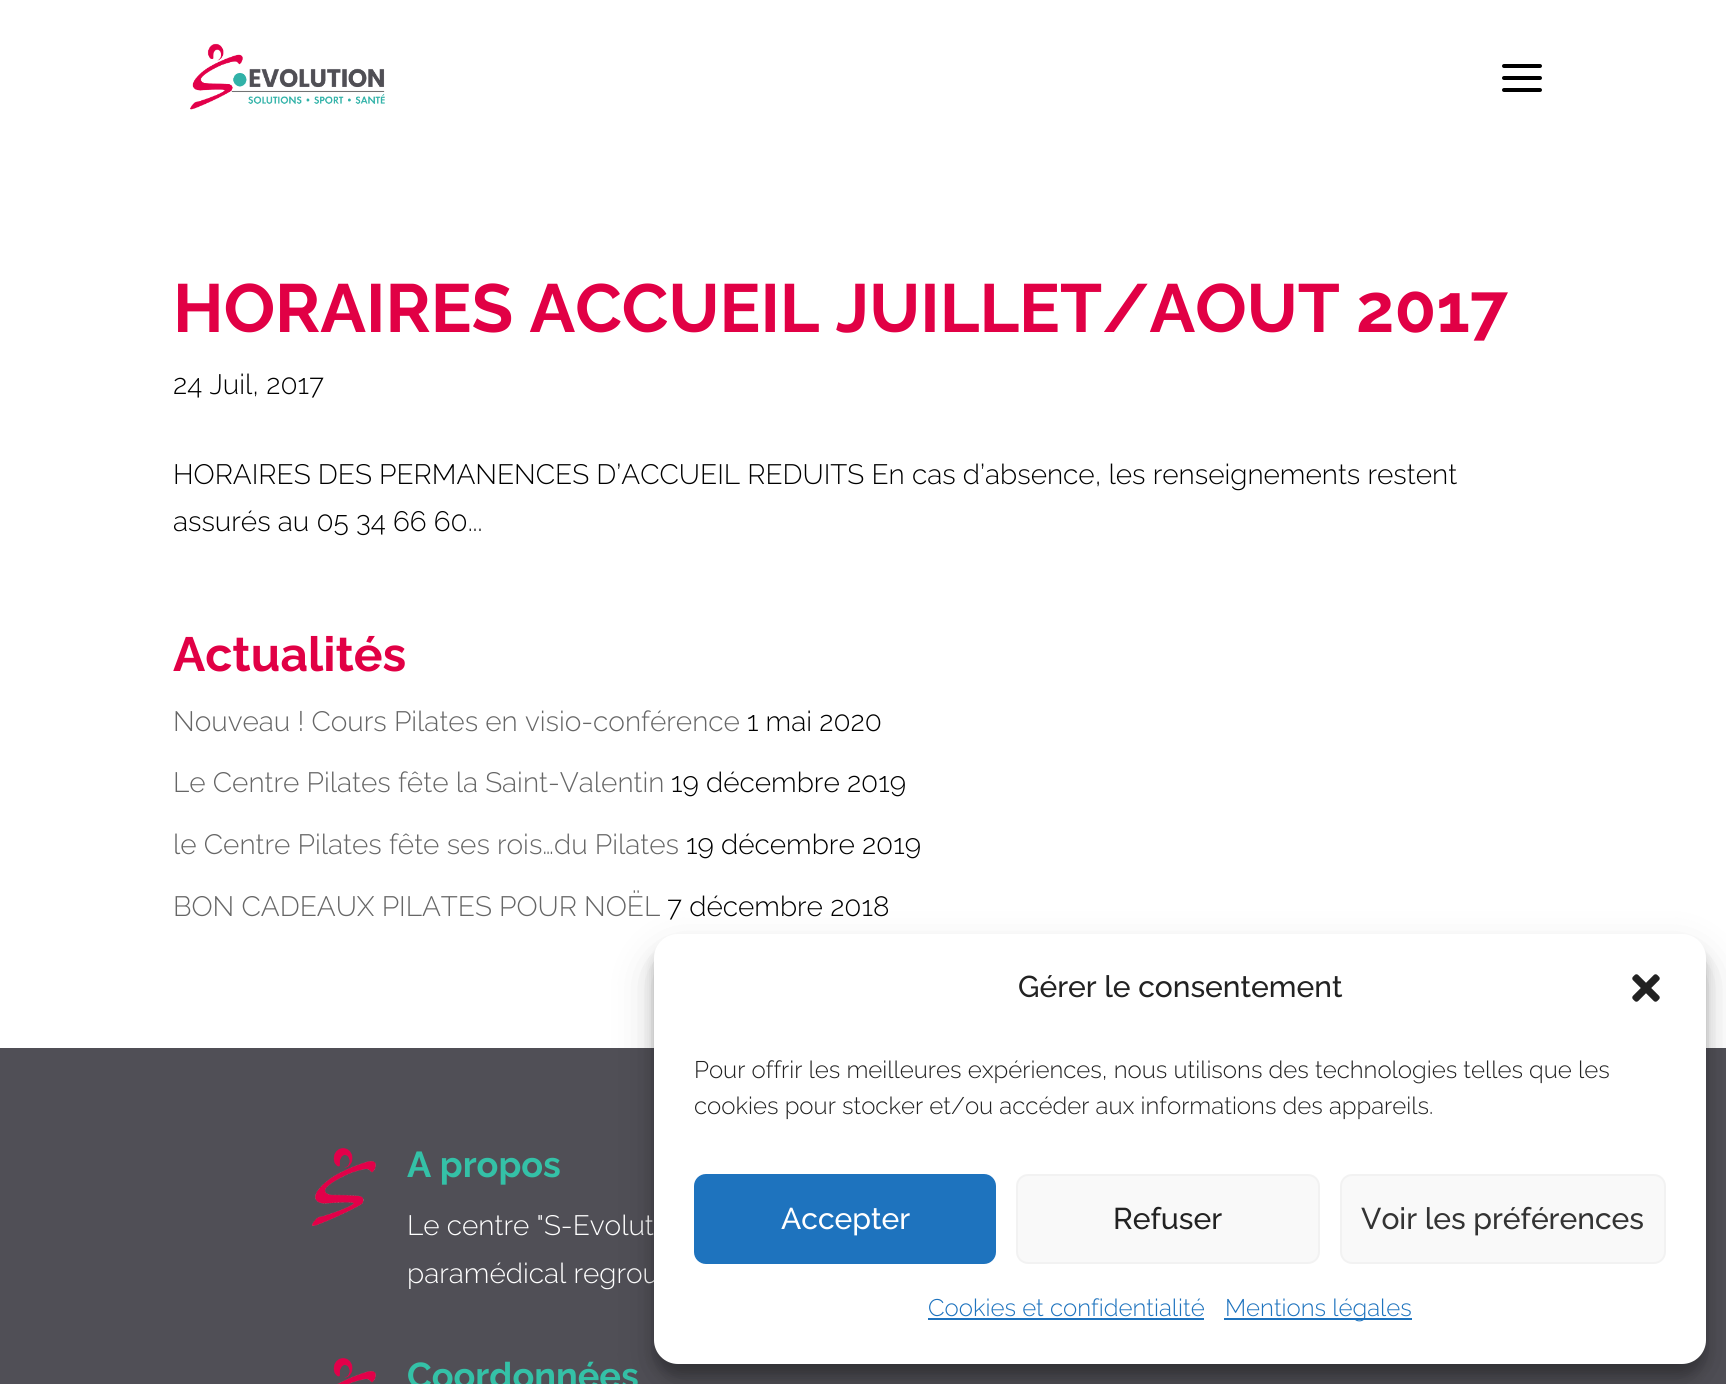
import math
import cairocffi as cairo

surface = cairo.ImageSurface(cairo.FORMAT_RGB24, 1726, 1384)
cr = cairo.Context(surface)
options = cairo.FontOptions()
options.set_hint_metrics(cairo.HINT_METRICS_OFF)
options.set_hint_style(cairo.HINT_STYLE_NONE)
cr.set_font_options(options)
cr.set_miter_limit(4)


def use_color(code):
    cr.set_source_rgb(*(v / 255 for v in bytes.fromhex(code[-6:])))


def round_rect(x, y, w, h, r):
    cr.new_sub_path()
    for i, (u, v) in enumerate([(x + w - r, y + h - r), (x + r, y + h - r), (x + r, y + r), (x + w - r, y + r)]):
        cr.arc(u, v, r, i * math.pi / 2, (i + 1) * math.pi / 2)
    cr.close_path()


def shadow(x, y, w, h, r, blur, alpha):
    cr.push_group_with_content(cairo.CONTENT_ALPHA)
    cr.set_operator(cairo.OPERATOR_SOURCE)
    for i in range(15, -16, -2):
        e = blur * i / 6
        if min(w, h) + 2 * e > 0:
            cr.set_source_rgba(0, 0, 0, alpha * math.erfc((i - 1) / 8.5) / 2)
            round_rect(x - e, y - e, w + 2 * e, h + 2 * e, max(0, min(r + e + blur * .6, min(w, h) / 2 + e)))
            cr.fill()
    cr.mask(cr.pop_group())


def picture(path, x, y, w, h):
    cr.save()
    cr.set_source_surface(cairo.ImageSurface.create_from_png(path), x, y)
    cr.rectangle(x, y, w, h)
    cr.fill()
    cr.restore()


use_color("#ffffff")
cr.paint()
picture("img1.png", 190, 43, 195, 67)
picture("img2.png", 1502, 64, 40, 28)
cr.select_font_face("Raleway", cairo.FONT_SLANT_NORMAL, cairo.FONT_WEIGHT_BOLD)
cr.set_font_size(68)
use_color("#e10045")
cr.move_to(173, 332)
cr.show_text("HORAIRES ACCUEIL JUILLET/AOUT 2017")
cr.select_font_face("Raleway Light")
cr.set_font_size(28)
use_color("#000000")
cr.move_to(173, 394)
cr.show_text("24 Juil, 2017")
cr.move_to(173, 484)
cr.show_text("HORAIRES DES PERMANENCES D’ACCUEIL REDUITS En cas d’absence, les renseignements restent")
cr.move_to(173, 531)
cr.show_text("assurés au 05 34 66 60...")
cr.select_font_face("Raleway", cairo.FONT_SLANT_NORMAL, cairo.FONT_WEIGHT_BOLD)
cr.set_font_size(48)
use_color("#e10045")
cr.move_to(173, 671)
cr.show_text("Actualités")
cr.select_font_face("Raleway Light")
cr.set_font_size(28)
use_color("#666666")
cr.move_to(173, 731)
cr.show_text("Nouveau ! Cours Pilates en visio-conférence")
use_color("#000000")
cr.move_to(747, 731)
cr.show_text("1 mai 2020")
use_color("#666666")
cr.move_to(173, 792)
cr.show_text("Le Centre Pilates fête la Saint-Valentin")
use_color("#000000")
cr.move_to(671, 792)
cr.show_text("19 décembre 2019")
use_color("#666666")
cr.move_to(173, 854)
cr.show_text("le Centre Pilates fête ses rois…du Pilates")
use_color("#000000")
cr.move_to(686, 854)
cr.show_text("19 décembre 2019")
use_color("#666666")
cr.move_to(173, 916)
cr.show_text("BON CADEAUX PILATES POUR NOËL")
use_color("#000000")
cr.move_to(667, 916)
cr.show_text("7 décembre 2018")
use_color("#504f56")
cr.rectangle(0, 1048, 1726, 336)
cr.fill()
picture("img3.png", 312, 1148, 64, 78)
cr.select_font_face("Raleway", cairo.FONT_SLANT_NORMAL, cairo.FONT_WEIGHT_BOLD)
cr.set_font_size(36)
use_color("#34c1a7")
cr.move_to(407, 1177)
cr.show_text("A propos")
cr.select_font_face("Raleway Light")
cr.set_font_size(28)
use_color("#ffffff")
cr.move_to(407, 1235)
cr.show_text("Le centre \"S-Evolut")
cr.move_to(407, 1283)
cr.show_text("paramédical regrou")
picture("img4.png", 333, 1358, 43, 26)
cr.select_font_face("Raleway", cairo.FONT_SLANT_NORMAL, cairo.FONT_WEIGHT_BOLD)
cr.set_font_size(36)
use_color("#34c1a7")
cr.move_to(407, 1388)
cr.show_text("Coordonnées")
use_color("#000000")
shadow(654, 946, 1052, 430, 24, 6, 0.23)
shadow(654, 954, 1052, 430, 24, 20, 0.19)
use_color("#ffffff")
round_rect(654, 934, 1052, 430, 24)
cr.fill()
cr.select_font_face("Raleway Medium")
cr.set_font_size(30)
use_color("#222222")
cr.move_to(1018, 997)
cr.show_text("Gérer le consentement")
picture("img5.png", 1632, 974, 28, 28)
cr.select_font_face("Raleway Light")
cr.set_font_size(24)
cr.move_to(694, 1078)
cr.show_text("Pour offrir les meilleures expériences, nous utilisons des technologies telles que les")
cr.move_to(694, 1114)
cr.show_text("cookies pour stocker et/ou accéder aux informations des appareils.")
use_color("#1e73be")
round_rect(695, 1175, 300, 88, 11)
cr.fill_preserve()
cr.stroke()
cr.select_font_face("Raleway Medium")
cr.set_font_size(30)
use_color("#ffffff")
cr.move_to(781, 1229)
cr.show_text("Accepter")
use_color("#f9f9f9")
round_rect(1017, 1175, 302, 88, 11)
cr.fill_preserve()
use_color("#f2f2f2")
cr.stroke()
use_color("#222222")
cr.move_to(1113, 1229)
cr.show_text("Refuser")
use_color("#f9f9f9")
round_rect(1341, 1175, 324, 88, 11)
cr.fill_preserve()
use_color("#f2f2f2")
cr.stroke()
use_color("#333333")
cr.move_to(1361, 1229)
cr.show_text("Voir les préférences")
cr.select_font_face("Raleway Light")
cr.set_font_size(24)
use_color("#1e73be")
cr.move_to(928, 1316)
cr.show_text("Cookies et confidentialité")
cr.rectangle(928, 1318, 276, 2)
cr.fill()
cr.rectangle(1224, 1318, 188, 2)
cr.fill()
cr.move_to(1225, 1316)
cr.show_text("Mentions légales")
surface.write_to_png("result.png")
